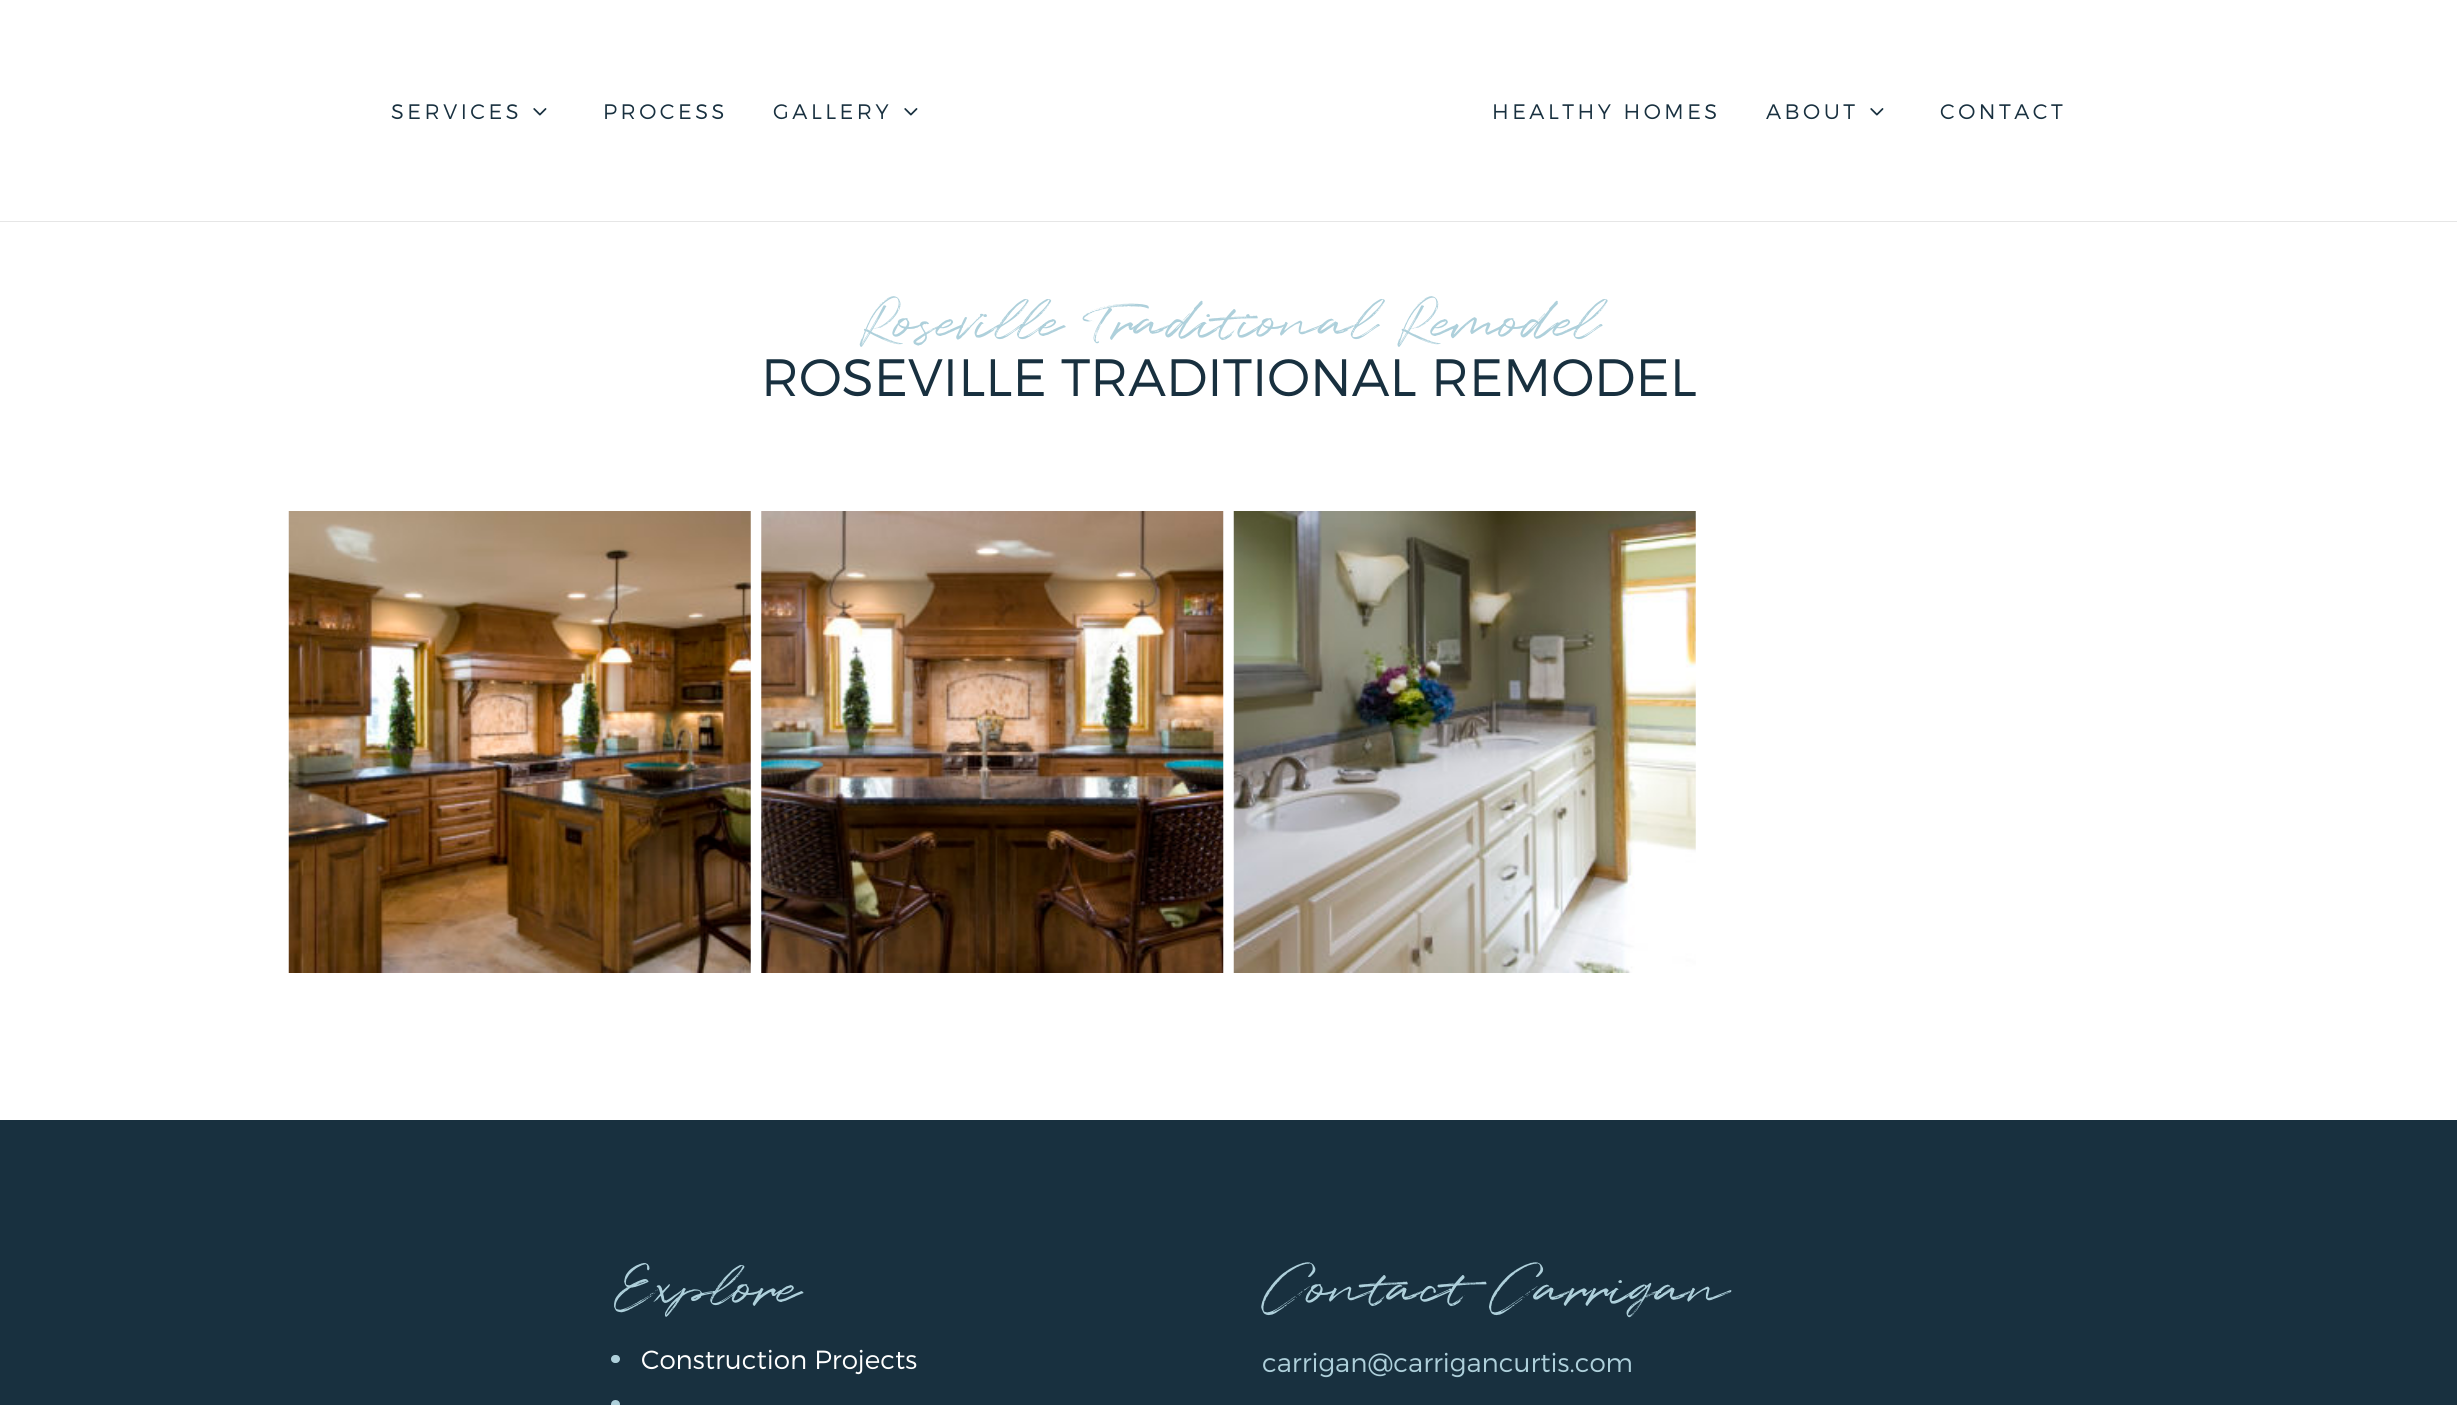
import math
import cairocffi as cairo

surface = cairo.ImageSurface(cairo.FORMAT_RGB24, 2457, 1405)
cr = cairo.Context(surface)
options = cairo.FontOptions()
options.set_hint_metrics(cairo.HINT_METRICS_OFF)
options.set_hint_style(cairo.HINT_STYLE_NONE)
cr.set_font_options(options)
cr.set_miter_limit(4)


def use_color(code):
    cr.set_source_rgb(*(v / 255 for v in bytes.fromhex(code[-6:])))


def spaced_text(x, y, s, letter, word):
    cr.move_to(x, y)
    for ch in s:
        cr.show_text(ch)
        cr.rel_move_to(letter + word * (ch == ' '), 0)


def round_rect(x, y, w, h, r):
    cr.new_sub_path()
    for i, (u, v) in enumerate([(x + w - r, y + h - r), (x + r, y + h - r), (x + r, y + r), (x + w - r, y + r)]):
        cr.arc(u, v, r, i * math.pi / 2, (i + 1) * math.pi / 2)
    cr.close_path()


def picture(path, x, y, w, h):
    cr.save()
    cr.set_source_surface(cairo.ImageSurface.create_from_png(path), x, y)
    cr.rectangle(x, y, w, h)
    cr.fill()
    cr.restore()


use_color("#ffffff")
cr.paint()
use_color("#e6e6e6")
cr.rectangle(0, 221, 2457, 1)
cr.fill()
cr.select_font_face("Montserrat Light")
cr.set_font_size(21)
use_color("#18303f")
spaced_text(391, 119, "SERVICES", 3.5, 0)
picture("img1.png", 533, 108, 14, 8)
spaced_text(603, 119, "PROCESS", 3.5, 0)
spaced_text(773, 119, "GALLERY", 3.5, 0)
picture("img1.png", 904, 108, 14, 8)
spaced_text(1492, 119, "HEALTHY HOMES", 3.5, 0)
spaced_text(1766, 119, "ABOUT", 3.5, 0)
picture("img1.png", 1870, 108, 14, 8)
spaced_text(1940, 119, "CONTACT", 3.5, 0)
cr.select_font_face("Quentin")
cr.set_font_size(56)
use_color("#aed0db")
cr.move_to(859, 338)
cr.show_text("Roseville Traditional Remodel")
cr.select_font_face("Montserrat Light")
cr.set_font_size(52.5)
use_color("#18303f")
cr.move_to(761, 396)
cr.show_text("ROSEVILLE TRADITIONAL REMODEL")
picture("img2.png", 288, 511, 463, 462)
picture("img3.png", 761, 511, 463, 462)
picture("img4.png", 1233, 511, 463, 462)
cr.rectangle(0, 1120, 2457, 285)
cr.fill()
cr.select_font_face("Quentin")
cr.set_font_size(56)
use_color("#aed0db")
cr.move_to(614, 1304)
cr.show_text("Explore")
round_rect(611, 1355, 9, 8, 4)
cr.fill()
cr.select_font_face("Montserrat Light")
cr.set_font_size(26.25)
use_color("#ffffff")
cr.move_to(641, 1369)
cr.show_text("Construction Projects")
use_color("#aed0db")
cr.new_path()
cr.arc(615.5, 1404.5, 4.5, 0, 2 * math.pi)
cr.fill()
cr.select_font_face("Quentin")
cr.set_font_size(56)
cr.move_to(1262, 1304)
cr.show_text("Contact Carrigan")
cr.select_font_face("Montserrat Light")
cr.set_font_size(26.25)
cr.move_to(1262, 1372)
cr.show_text("carrigan@carrigancurtis.com")
surface.write_to_png("result.png")
